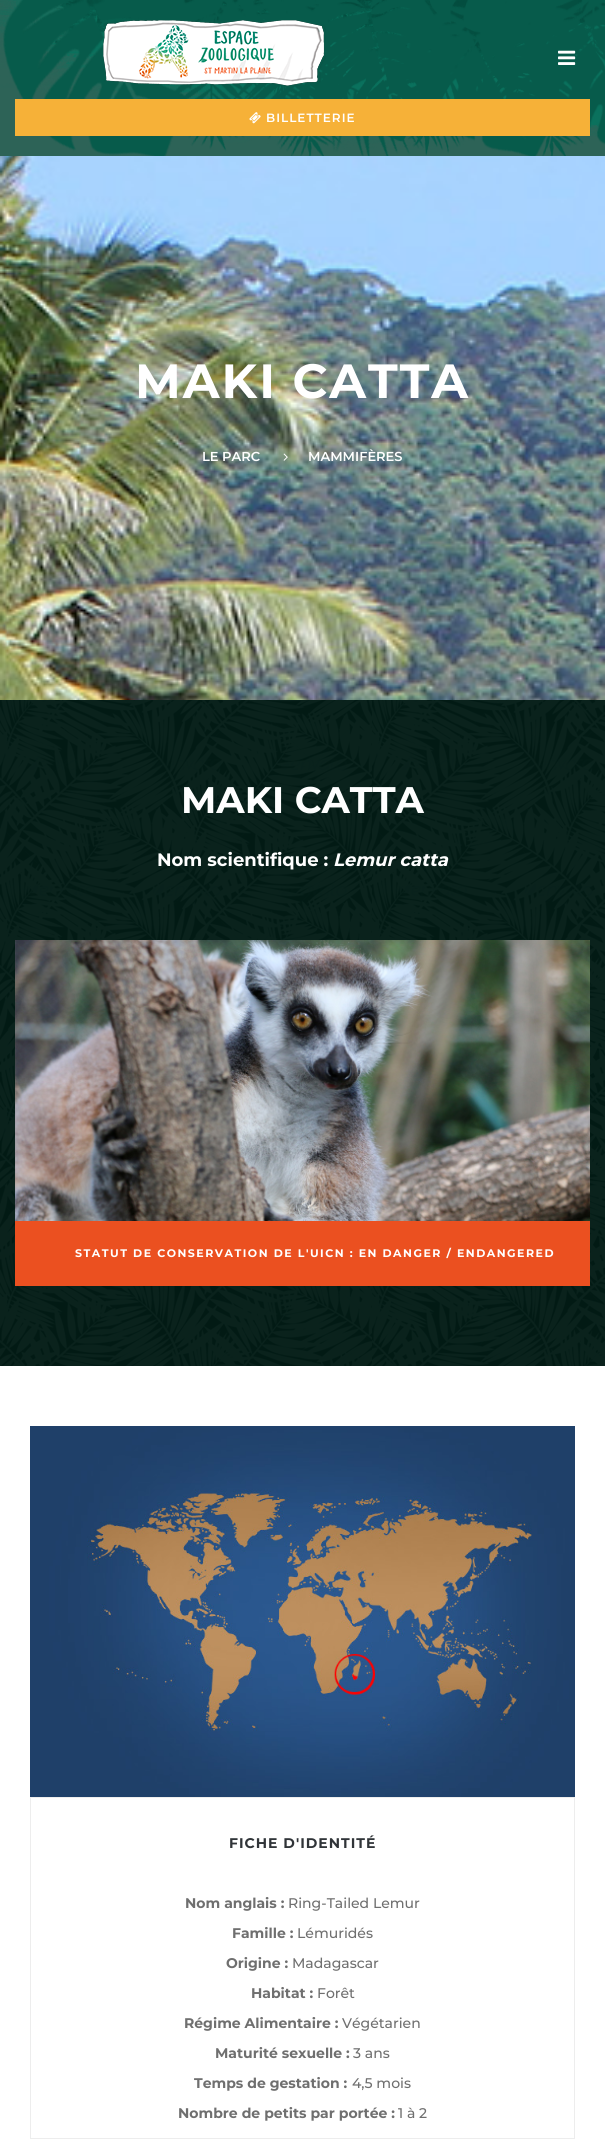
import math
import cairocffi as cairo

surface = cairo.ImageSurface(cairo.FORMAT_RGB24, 605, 2154)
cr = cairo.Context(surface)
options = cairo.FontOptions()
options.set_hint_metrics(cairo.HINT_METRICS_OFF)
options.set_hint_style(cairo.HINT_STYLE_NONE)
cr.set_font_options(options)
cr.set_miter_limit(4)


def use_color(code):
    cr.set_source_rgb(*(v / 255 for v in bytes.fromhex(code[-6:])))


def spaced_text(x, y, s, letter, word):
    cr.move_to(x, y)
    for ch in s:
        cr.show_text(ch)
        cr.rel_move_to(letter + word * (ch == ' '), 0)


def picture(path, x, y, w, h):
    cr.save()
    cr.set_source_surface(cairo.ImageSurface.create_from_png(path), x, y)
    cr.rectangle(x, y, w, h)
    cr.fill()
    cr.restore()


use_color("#ffffff")
cr.paint()
use_color("#2d6357")
cr.rectangle(0, 0, 605, 156)
cr.fill()
picture("img1.png", 0, 0, 605, 156)
picture("img2.png", 103, 20, 223, 66)
picture("img3.png", 558, 50, 18, 15)
use_color("#f6b138")
cr.rectangle(15, 99, 575, 37)
cr.fill()
picture("img4.png", 249, 112, 12, 12)
cr.select_font_face("Montserrat SemiBold")
cr.set_font_size(12)
use_color("#ffffff")
spaced_text(266, 122, "BILLETTERIE", 1, 0)
picture("img5.png", 0, 156, 605, 544)
cr.select_font_face("Montserrat", cairo.FONT_SLANT_NORMAL, cairo.FONT_WEIGHT_BOLD)
cr.set_font_size(48)
spaced_text(135, 398, "MAKI CATTA", 2, 0)
cr.select_font_face("Montserrat SemiBold")
cr.set_font_size(13)
cr.move_to(202, 461)
cr.show_text("LE PARC")
picture("img6.png", 283, 453, 5, 8)
cr.move_to(308, 461)
cr.show_text("MAMMIFÈRES")
picture("img7.png", 0, 700, 605, 666)
cr.select_font_face("Montserrat", cairo.FONT_SLANT_NORMAL, cairo.FONT_WEIGHT_BOLD)
cr.set_font_size(37)
cr.move_to(181, 813)
cr.show_text("MAKI CATTA")
cr.set_font_size(18)
cr.move_to(157, 866)
cr.show_text("Nom scientifique :")
cr.select_font_face("Montserrat", cairo.FONT_SLANT_ITALIC, cairo.FONT_WEIGHT_BOLD)
cr.move_to(333, 866)
cr.show_text("Lemur catta")
picture("img8.png", 15, 940, 575, 281)
use_color("#eb5020")
cr.rectangle(15, 1221, 575, 65)
cr.fill()
cr.select_font_face("Montserrat", cairo.FONT_SLANT_NORMAL, cairo.FONT_WEIGHT_BOLD)
cr.set_font_size(11)
use_color("#ffffff")
spaced_text(75, 1257, "STATUT DE CONSERVATION DE L'UICN : EN DANGER / ENDANGERED", 1.5, 0)
picture("img9.png", 30, 1426, 545, 371)
cr.rectangle(30.5, 1797.5, 544, 341)
use_color("#ededed")
cr.set_line_width(1)
cr.stroke()
cr.set_font_size(14)
use_color("#303438")
spaced_text(229, 1848, "FICHE D'IDENTITÉ", 1, 0)
use_color("#6f6f6f")
cr.move_to(185, 1908)
cr.show_text("Nom anglais :")
cr.select_font_face("Montserrat Medium")
cr.move_to(288, 1908)
cr.show_text("Ring-Tailed Lemur")
cr.select_font_face("Montserrat", cairo.FONT_SLANT_NORMAL, cairo.FONT_WEIGHT_BOLD)
cr.move_to(232, 1938)
cr.show_text("Famille :")
cr.select_font_face("Montserrat Medium")
cr.move_to(297, 1938)
cr.show_text("Lémuridés")
cr.select_font_face("Montserrat", cairo.FONT_SLANT_NORMAL, cairo.FONT_WEIGHT_BOLD)
cr.move_to(226, 1968)
cr.show_text("Origine :")
cr.select_font_face("Montserrat Medium")
cr.move_to(292, 1968)
cr.show_text("Madagascar")
cr.select_font_face("Montserrat", cairo.FONT_SLANT_NORMAL, cairo.FONT_WEIGHT_BOLD)
cr.move_to(251, 1998)
cr.show_text("Habitat :")
cr.select_font_face("Montserrat Medium")
cr.move_to(317, 1998)
cr.show_text("Forêt")
cr.select_font_face("Montserrat", cairo.FONT_SLANT_NORMAL, cairo.FONT_WEIGHT_BOLD)
cr.move_to(184, 2028)
cr.show_text("Régime Alimentaire :")
cr.select_font_face("Montserrat Medium")
cr.move_to(342, 2028)
cr.show_text("Végétarien")
cr.select_font_face("Montserrat", cairo.FONT_SLANT_NORMAL, cairo.FONT_WEIGHT_BOLD)
cr.move_to(215, 2058)
cr.show_text("Maturité sexuelle :")
cr.select_font_face("Montserrat Medium")
cr.move_to(353, 2058)
cr.show_text("3 ans")
cr.select_font_face("Montserrat", cairo.FONT_SLANT_NORMAL, cairo.FONT_WEIGHT_BOLD)
cr.move_to(194, 2088)
cr.show_text("Temps de gestation :")
cr.select_font_face("Montserrat Medium")
cr.move_to(352, 2088)
cr.show_text("4,5 mois")
cr.select_font_face("Montserrat", cairo.FONT_SLANT_NORMAL, cairo.FONT_WEIGHT_BOLD)
cr.move_to(178, 2118)
cr.show_text("Nombre de petits par portée :")
cr.select_font_face("Montserrat Medium")
cr.move_to(398, 2118)
cr.show_text("1 à 2")
surface.write_to_png("result.png")
